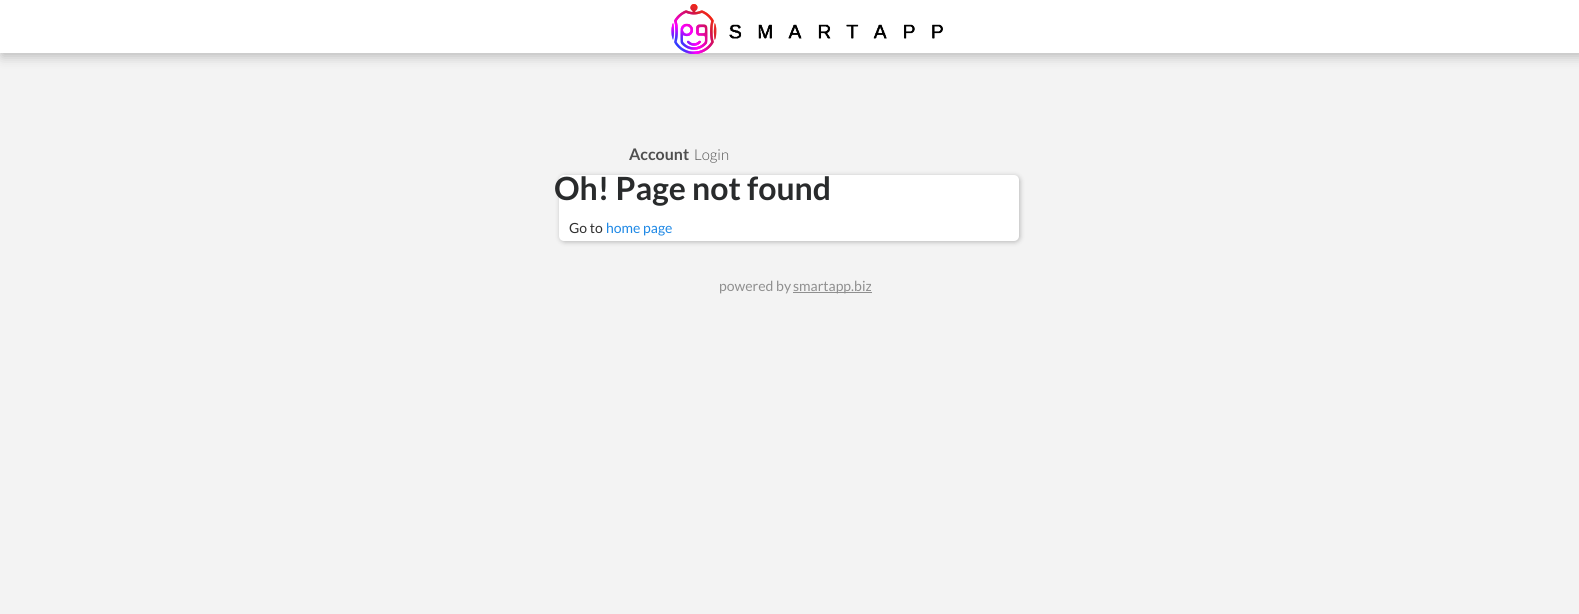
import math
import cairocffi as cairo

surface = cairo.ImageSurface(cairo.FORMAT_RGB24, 1579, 614)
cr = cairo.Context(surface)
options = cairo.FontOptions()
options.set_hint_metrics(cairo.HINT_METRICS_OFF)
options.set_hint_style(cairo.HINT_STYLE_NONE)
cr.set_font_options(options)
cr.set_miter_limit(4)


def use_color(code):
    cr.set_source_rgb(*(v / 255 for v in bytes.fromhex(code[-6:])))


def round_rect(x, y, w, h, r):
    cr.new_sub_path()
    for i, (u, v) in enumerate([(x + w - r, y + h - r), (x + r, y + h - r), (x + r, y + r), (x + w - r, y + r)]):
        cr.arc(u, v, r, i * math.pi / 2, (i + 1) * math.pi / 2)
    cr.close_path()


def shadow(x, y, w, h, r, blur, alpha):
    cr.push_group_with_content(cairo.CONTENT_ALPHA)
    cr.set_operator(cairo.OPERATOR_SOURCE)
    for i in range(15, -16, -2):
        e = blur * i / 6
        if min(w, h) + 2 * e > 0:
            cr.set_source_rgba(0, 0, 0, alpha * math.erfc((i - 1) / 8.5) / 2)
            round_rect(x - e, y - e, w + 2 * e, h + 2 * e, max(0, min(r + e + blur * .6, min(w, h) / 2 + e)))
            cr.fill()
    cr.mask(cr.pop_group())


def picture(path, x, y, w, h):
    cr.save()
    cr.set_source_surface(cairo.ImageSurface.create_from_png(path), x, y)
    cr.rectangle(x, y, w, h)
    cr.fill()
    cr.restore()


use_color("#f3f3f3")
cr.paint()
use_color("#000000")
shadow(2, 3, 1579, 53, 0, 6, 0.25)
use_color("#ffffff")
cr.rectangle(0, 0, 1579, 53)
cr.fill()
picture("img1.png", 671, 4, 272, 50)
cr.select_font_face("Lato", cairo.FONT_SLANT_NORMAL, cairo.FONT_WEIGHT_BOLD)
cr.set_font_size(16)
use_color("#4f4f4f")
cr.move_to(629, 160)
cr.show_text("Account")
cr.select_font_face("Lato Light")
cr.set_font_size(15)
cr.move_to(694, 160)
cr.show_text("Login")
use_color("#000000")
shadow(560, 176, 460, 66, 5, 2.5, 0.25)
use_color("#ffffff")
round_rect(559, 175, 460, 66, 5)
cr.fill()
cr.select_font_face("Lato", cairo.FONT_SLANT_NORMAL, cairo.FONT_WEIGHT_BOLD)
cr.set_font_size(32)
use_color("#292b2c")
cr.move_to(554, 200)
cr.show_text("Oh! Page not found")
cr.select_font_face("Lato")
cr.set_font_size(14)
use_color("#303030")
cr.move_to(569, 233)
cr.show_text("Go to")
use_color("#1e88e5")
cr.move_to(606, 233)
cr.show_text("home page")
use_color("#8f8f8f")
cr.move_to(719, 291)
cr.show_text("powered by")
cr.rectangle(793, 292, 79, 1)
cr.fill()
cr.move_to(793, 291)
cr.show_text("smartapp.biz")
surface.write_to_png("result.png")
